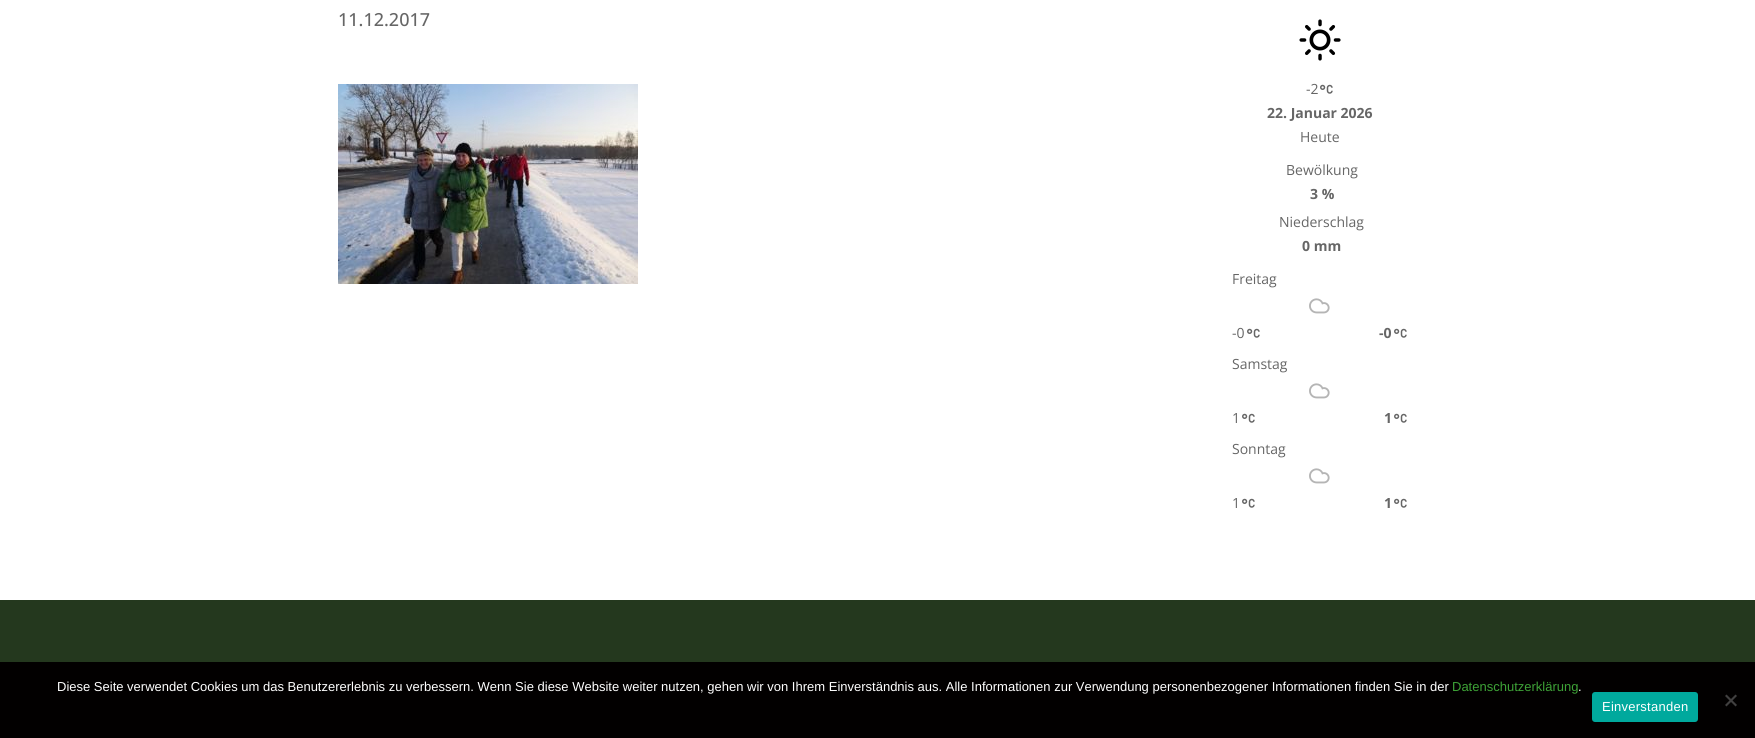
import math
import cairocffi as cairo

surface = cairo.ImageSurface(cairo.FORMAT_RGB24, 1755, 738)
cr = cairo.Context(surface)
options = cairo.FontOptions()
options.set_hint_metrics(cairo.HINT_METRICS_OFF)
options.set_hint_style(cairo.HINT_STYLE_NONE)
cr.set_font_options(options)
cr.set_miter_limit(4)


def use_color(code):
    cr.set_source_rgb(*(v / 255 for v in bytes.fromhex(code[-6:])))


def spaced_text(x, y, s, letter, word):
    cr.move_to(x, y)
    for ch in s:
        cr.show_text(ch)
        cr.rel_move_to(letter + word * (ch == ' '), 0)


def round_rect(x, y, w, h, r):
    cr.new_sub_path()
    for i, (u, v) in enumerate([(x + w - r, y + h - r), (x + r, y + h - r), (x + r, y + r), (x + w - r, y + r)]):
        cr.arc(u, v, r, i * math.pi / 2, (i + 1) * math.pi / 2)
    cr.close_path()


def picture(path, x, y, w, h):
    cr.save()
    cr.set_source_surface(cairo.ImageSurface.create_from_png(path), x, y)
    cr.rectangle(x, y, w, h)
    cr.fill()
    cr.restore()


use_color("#24381e")
cr.paint()
use_color("#ffffff")
cr.rectangle(0, 0, 1755, 600)
cr.fill()
cr.select_font_face("Open Sans Medium")
cr.set_font_size(18)
use_color("#666666")
cr.move_to(338, 26)
cr.show_text("11.12.2017")
picture("img1.png", 338, 84, 300, 200)
picture("img2.png", 1299, 19, 42, 42)
cr.select_font_face("Open Sans")
cr.set_font_size(14)
cr.move_to(1306, 94)
cr.show_text("-2")
picture("img3.png", 1320, 84, 13, 10)
cr.select_font_face("Open Sans", cairo.FONT_SLANT_NORMAL, cairo.FONT_WEIGHT_BOLD)
cr.move_to(1267, 118)
cr.show_text("22. Januar 2026")
cr.select_font_face("Open Sans")
cr.move_to(1300, 142)
cr.show_text("Heute")
cr.move_to(1286, 175)
cr.show_text("Bewölkung")
cr.select_font_face("Open Sans", cairo.FONT_SLANT_NORMAL, cairo.FONT_WEIGHT_BOLD)
cr.move_to(1310, 199)
cr.show_text("3 %")
cr.select_font_face("Open Sans")
cr.move_to(1279, 227)
cr.show_text("Niederschlag")
cr.select_font_face("Open Sans", cairo.FONT_SLANT_NORMAL, cairo.FONT_WEIGHT_BOLD)
cr.move_to(1302, 251)
cr.show_text("0 mm")
cr.select_font_face("Open Sans")
cr.move_to(1232, 284)
cr.show_text("Freitag")
picture("img4.png", 1309, 298, 21, 16)
cr.move_to(1232, 338)
cr.show_text("-0")
picture("img3.png", 1247, 328, 13, 10)
cr.select_font_face("Open Sans", cairo.FONT_SLANT_NORMAL, cairo.FONT_WEIGHT_BOLD)
cr.move_to(1379, 338)
cr.show_text("-0")
picture("img3.png", 1394, 328, 13, 10)
cr.select_font_face("Open Sans")
cr.move_to(1232, 369)
cr.show_text("Samstag")
picture("img4.png", 1309, 383, 21, 16)
cr.move_to(1232, 423)
cr.show_text("1")
picture("img3.png", 1242, 413, 13, 10)
cr.select_font_face("Open Sans", cairo.FONT_SLANT_NORMAL, cairo.FONT_WEIGHT_BOLD)
cr.move_to(1384, 423)
cr.show_text("1")
picture("img3.png", 1394, 413, 13, 10)
cr.select_font_face("Open Sans")
cr.move_to(1232, 454)
cr.show_text("Sonntag")
picture("img4.png", 1309, 468, 21, 16)
cr.move_to(1232, 508)
cr.show_text("1")
picture("img3.png", 1242, 498, 13, 10)
cr.select_font_face("Open Sans", cairo.FONT_SLANT_NORMAL, cairo.FONT_WEIGHT_BOLD)
cr.move_to(1384, 508)
cr.show_text("1")
picture("img3.png", 1394, 498, 13, 10)
use_color("#020000")
cr.rectangle(0, 662, 1755, 76)
cr.fill()
cr.select_font_face("Liberation Sans")
cr.set_font_size(13)
use_color("#ffffff")
cr.move_to(57, 691)
cr.show_text("Diese Seite verwendet Cookies um das Benutzererlebnis zu verbessern. Wenn Sie diese Website weiter nutzen, gehen wir von Ihrem Einverständnis aus. Alle Informationen zur Verwendung personenbezogener Informationen finden Sie in der")
use_color("#3ea337")
cr.move_to(1452, 691)
cr.show_text("Datenschutzerklärung")
use_color("#ffffff")
cr.move_to(1578, 691)
cr.show_text(".")
use_color("#00a99d")
round_rect(1592, 692, 106, 30, 3)
cr.fill()
use_color("#ffffff")
spaced_text(1602, 711, "Einverstanden", 0.25, 0)
use_color("#414040")
cr.new_path()
cr.move_to(1735.5, 694.5)
cr.line_to(1737, 696)
cr.line_to(1726.5, 706.5)
cr.line_to(1725, 705)
cr.close_path()
cr.fill()
cr.new_path()
cr.move_to(1725, 696)
cr.line_to(1726.5, 694.5)
cr.line_to(1737, 705)
cr.line_to(1735.5, 706.5)
cr.close_path()
cr.fill()
surface.write_to_png("result.png")
